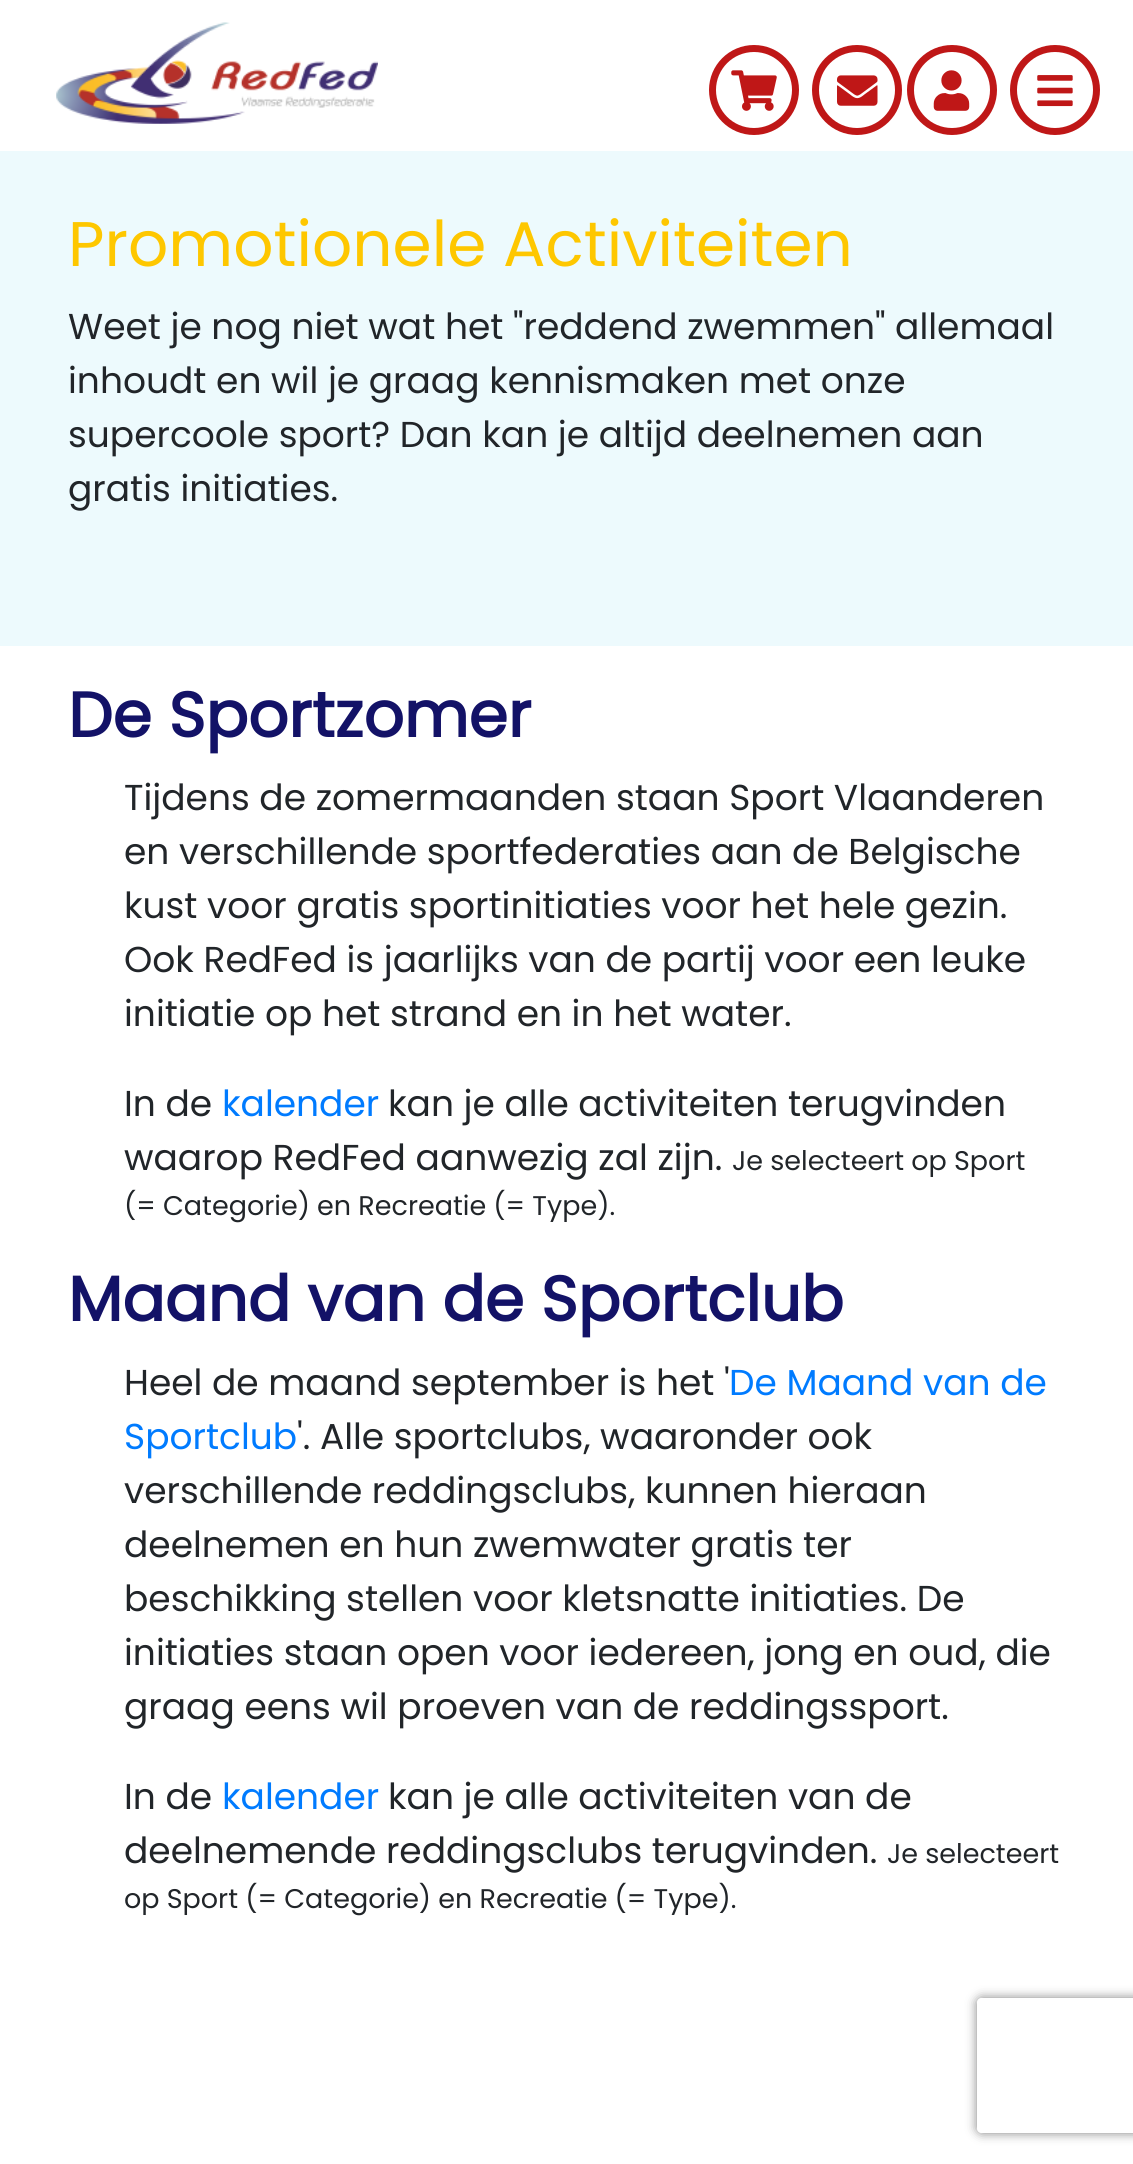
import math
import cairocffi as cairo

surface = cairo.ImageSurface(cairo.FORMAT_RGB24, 1133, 2164)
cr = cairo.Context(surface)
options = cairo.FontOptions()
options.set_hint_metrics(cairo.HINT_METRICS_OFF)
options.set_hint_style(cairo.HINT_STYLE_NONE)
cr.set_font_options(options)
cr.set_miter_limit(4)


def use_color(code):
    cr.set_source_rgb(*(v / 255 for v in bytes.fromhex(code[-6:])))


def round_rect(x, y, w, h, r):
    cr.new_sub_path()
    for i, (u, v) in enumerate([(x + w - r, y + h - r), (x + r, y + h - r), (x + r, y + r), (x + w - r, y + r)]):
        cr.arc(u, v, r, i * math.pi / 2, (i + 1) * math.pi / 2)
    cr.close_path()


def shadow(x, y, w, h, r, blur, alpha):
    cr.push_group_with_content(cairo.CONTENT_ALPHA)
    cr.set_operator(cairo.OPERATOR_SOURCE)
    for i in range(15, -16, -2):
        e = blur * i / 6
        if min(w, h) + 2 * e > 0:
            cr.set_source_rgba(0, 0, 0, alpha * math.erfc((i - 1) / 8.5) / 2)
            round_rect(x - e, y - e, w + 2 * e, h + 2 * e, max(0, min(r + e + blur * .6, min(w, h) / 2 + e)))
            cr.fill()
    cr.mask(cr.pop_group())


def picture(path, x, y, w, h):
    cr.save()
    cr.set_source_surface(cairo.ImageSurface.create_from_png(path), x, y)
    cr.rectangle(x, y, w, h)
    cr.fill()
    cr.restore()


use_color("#ffffff")
cr.paint()
picture("img1.png", 56, 22, 322, 102)
cr.arc(754, 90, 41.5, 0, 2 * math.pi)
use_color("#bf1717")
cr.set_line_width(7)
cr.stroke()
picture("img2.png", 731, 70, 46, 41)
cr.arc(857, 90, 41.5, 0, 2 * math.pi)
cr.stroke()
picture("img3.png", 837, 75, 41, 31)
cr.arc(952, 90, 41.5, 0, 2 * math.pi)
cr.stroke()
picture("img4.png", 933, 70, 37, 41)
cr.arc(1055, 90, 41.5, 0, 2 * math.pi)
cr.stroke()
picture("img5.png", 1037, 75, 36, 32)
use_color("#edfafd")
cr.rectangle(0, 151, 1133, 495)
cr.fill()
cr.select_font_face("Poppins")
cr.set_font_size(63)
use_color("#fec700")
cr.move_to(68, 266)
cr.show_text("Promotionele Activiteiten")
cr.set_font_size(36)
use_color("#212529")
cr.move_to(68, 339)
cr.show_text("Weet je nog niet wat het \"reddend zwemmen\" allemaal")
cr.move_to(68, 393)
cr.show_text("inhoudt en wil je graag kennismaken met onze")
cr.move_to(68, 447)
cr.show_text("supercoole sport? Dan kan je altijd deelnemen aan")
cr.move_to(68, 501)
cr.show_text("gratis initiaties.")
cr.select_font_face("Poppins", cairo.FONT_SLANT_NORMAL, cairo.FONT_WEIGHT_BOLD)
cr.set_font_size(63)
use_color("#131267")
cr.move_to(68, 737)
cr.show_text("De Sportzomer")
cr.select_font_face("Poppins")
cr.set_font_size(36)
use_color("#212529")
cr.move_to(124, 810)
cr.show_text("Tijdens de zomermaanden staan Sport Vlaanderen")
cr.move_to(124, 864)
cr.show_text("en verschillende sportfederaties aan de Belgische")
cr.move_to(124, 918)
cr.show_text("kust voor gratis sportinitiaties voor het hele gezin.")
cr.move_to(124, 972)
cr.show_text("Ook RedFed is jaarlijks van de partij voor een leuke")
cr.move_to(124, 1026)
cr.show_text("initiatie op het strand en in het water.")
cr.move_to(124, 1116)
cr.show_text("In de")
use_color("#007bff")
cr.move_to(222, 1116)
cr.show_text("kalender")
use_color("#212529")
cr.move_to(388, 1116)
cr.show_text("kan je alle activiteiten terugvinden")
cr.move_to(124, 1170)
cr.show_text("waarop RedFed aanwezig zal zijn.")
cr.set_font_size(27)
cr.move_to(732, 1170)
cr.show_text("Je selecteert op Sport")
cr.move_to(124, 1215)
cr.show_text("(= Categorie) en Recreatie (= Type).")
cr.select_font_face("Poppins", cairo.FONT_SLANT_NORMAL, cairo.FONT_WEIGHT_BOLD)
cr.set_font_size(63)
use_color("#131267")
cr.move_to(68, 1321)
cr.show_text("Maand van de Sportclub")
cr.select_font_face("Poppins")
cr.set_font_size(36)
use_color("#212529")
cr.move_to(124, 1395)
cr.show_text("Heel de maand september is het '")
use_color("#007bff")
cr.move_to(729, 1395)
cr.show_text("De Maand van de")
cr.move_to(124, 1449)
cr.show_text("Sportclub")
use_color("#212529")
cr.move_to(297, 1449)
cr.show_text("'. Alle sportclubs, waaronder ook")
cr.move_to(124, 1503)
cr.show_text("verschillende reddingsclubs, kunnen hieraan")
cr.move_to(124, 1557)
cr.show_text("deelnemen en hun zwemwater gratis ter")
cr.move_to(124, 1611)
cr.show_text("beschikking stellen voor kletsnatte initiaties. De")
cr.move_to(124, 1665)
cr.show_text("initiaties staan open voor iedereen, jong en oud, die")
cr.move_to(124, 1719)
cr.show_text("graag eens wil proeven van de reddingssport.")
cr.move_to(124, 1809)
cr.show_text("In de")
use_color("#007bff")
cr.move_to(222, 1809)
cr.show_text("kalender")
use_color("#212529")
cr.move_to(388, 1809)
cr.show_text("kan je alle activiteiten van de")
cr.move_to(124, 1863)
cr.show_text("deelnemende reddingsclubs terugvinden.")
cr.set_font_size(27)
cr.move_to(887, 1863)
cr.show_text("Je selecteert")
cr.move_to(124, 1908)
cr.show_text("op Sport (= Categorie) en Recreatie (= Type).")
cr.save()
cr.set_fill_rule(cairo.FILL_RULE_EVEN_ODD)
cr.new_path()
cr.move_to(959, 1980)
cr.line_to(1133, 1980)
cr.line_to(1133, 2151)
cr.line_to(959, 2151)
cr.close_path()
cr.move_to(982, 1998)
cr.line_to(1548, 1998)
cr.curve_to(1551, 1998, 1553, 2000, 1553, 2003)
cr.line_to(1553, 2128)
cr.curve_to(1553, 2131, 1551, 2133, 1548, 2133)
cr.line_to(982, 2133)
cr.curve_to(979, 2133, 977, 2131, 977, 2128)
cr.line_to(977, 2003)
cr.curve_to(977, 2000, 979, 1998, 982, 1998)
cr.close_path()
cr.clip()
use_color("#808080")
shadow(977, 1998, 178, 135, 5, 5.5, 1)
cr.restore()
surface.write_to_png("result.png")
